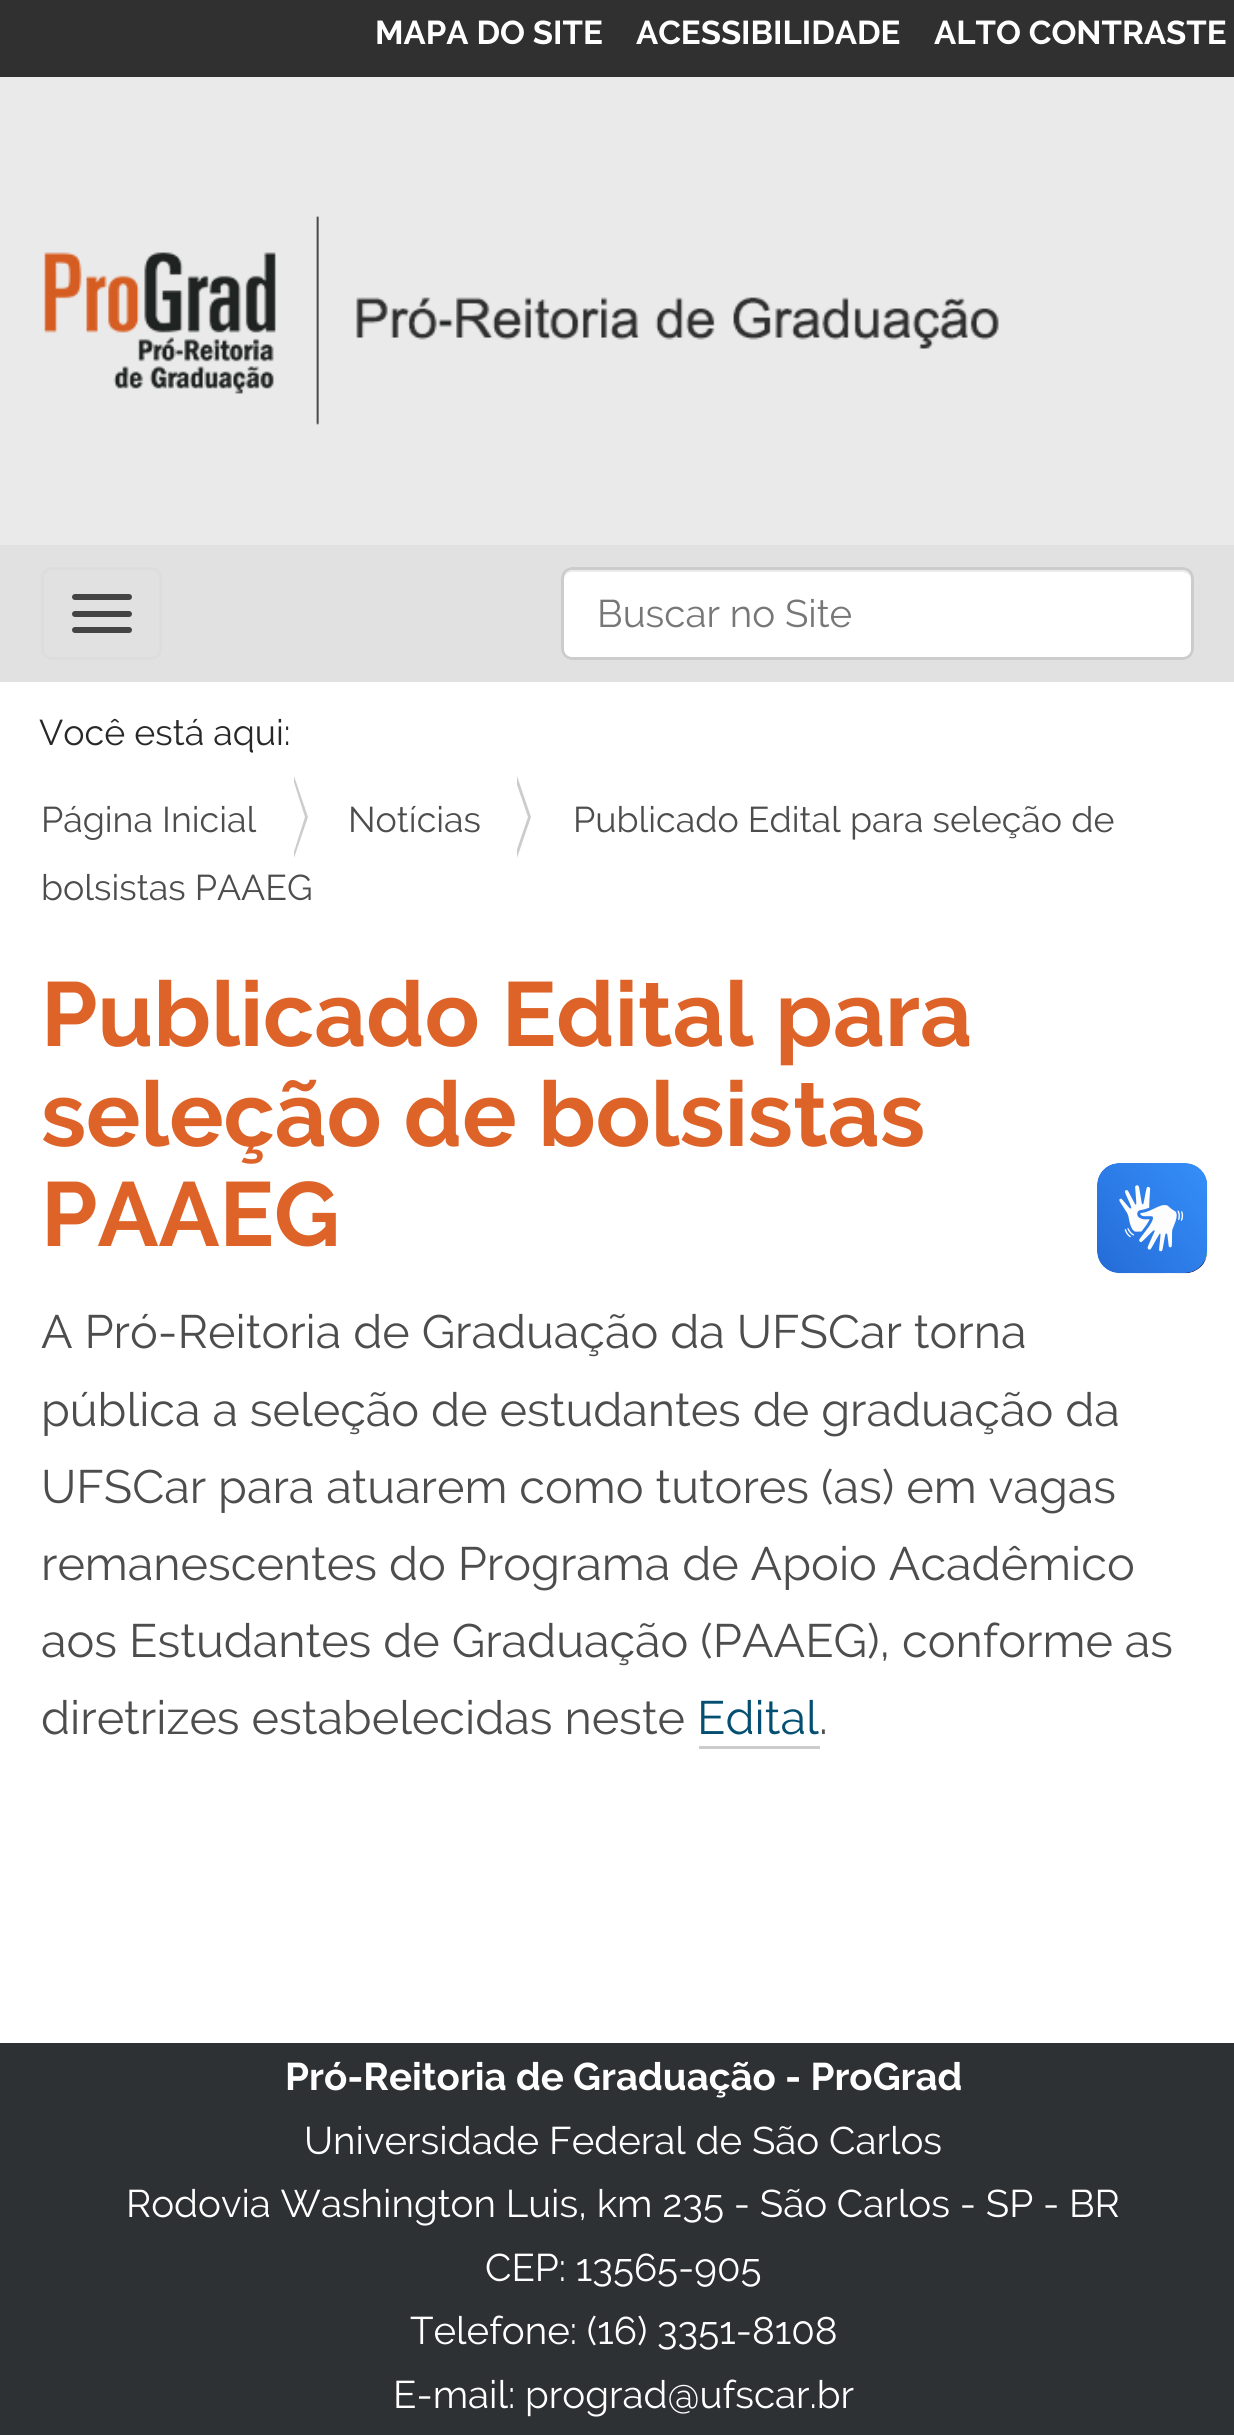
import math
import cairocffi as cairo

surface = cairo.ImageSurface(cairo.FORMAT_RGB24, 1234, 2435)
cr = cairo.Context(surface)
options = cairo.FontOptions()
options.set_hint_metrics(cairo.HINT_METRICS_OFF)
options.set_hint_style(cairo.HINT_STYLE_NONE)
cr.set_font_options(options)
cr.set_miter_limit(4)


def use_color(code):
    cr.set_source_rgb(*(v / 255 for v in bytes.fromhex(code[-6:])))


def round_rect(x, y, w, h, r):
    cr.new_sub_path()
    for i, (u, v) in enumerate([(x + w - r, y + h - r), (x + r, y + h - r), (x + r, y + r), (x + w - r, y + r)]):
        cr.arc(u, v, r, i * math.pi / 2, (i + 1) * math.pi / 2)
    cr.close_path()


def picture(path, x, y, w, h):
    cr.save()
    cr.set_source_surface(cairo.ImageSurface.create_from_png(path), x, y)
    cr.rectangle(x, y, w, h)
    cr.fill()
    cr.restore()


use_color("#ffffff")
cr.paint()
use_color("#eaeaea")
cr.rectangle(0, 77, 1234, 468)
cr.fill()
use_color("#303030")
cr.rectangle(0, 0, 1234, 77)
cr.fill()
cr.select_font_face("Raleway", cairo.FONT_SLANT_NORMAL, cairo.FONT_WEIGHT_BOLD)
cr.set_font_size(33)
use_color("#ffffff")
cr.move_to(375, 44)
cr.show_text("MAPA DO SITE")
cr.move_to(636, 44)
cr.show_text("ACESSIBILIDADE")
cr.move_to(934, 44)
cr.show_text("ALTO CONTRASTE")
picture("img1.png", 44, 216, 955, 209)
use_color("#e1e1e1")
cr.rectangle(0, 545, 1234, 137)
cr.fill()
use_color("#ffffff")
round_rect(561, 567, 633, 93, 11)
cr.fill()
use_color("#ececec")
cr.new_path()
cr.move_to(572, 572)
cr.line_to(1182, 572)
cr.curve_to(1187, 572, 1191, 576, 1191, 580)
cr.line_to(1191, 577)
cr.curve_to(1191, 573, 1187, 569, 1183, 569)
cr.line_to(572, 569)
cr.curve_to(568, 569, 564, 573, 564, 577)
cr.line_to(564, 580)
cr.curve_to(564, 576, 567, 572, 572, 572)
cr.close_path()
cr.fill()
round_rect(562.5, 568.5, 630, 90, 9.5)
use_color("#cccccc")
cr.set_line_width(3)
cr.stroke()
cr.select_font_face("Raleway")
cr.set_font_size(38.5)
use_color("#777777")
cr.move_to(597, 627)
cr.show_text("Buscar no Site")
round_rect(42.5, 568.5, 118, 90, 9.5)
use_color("#dddddd")
cr.stroke()
use_color("#444444")
round_rect(72, 594, 60, 6, 3)
cr.fill()
round_rect(72, 611, 60, 6, 3)
cr.fill()
round_rect(72, 627, 60, 6, 3)
cr.fill()
cr.set_font_size(35.75)
use_color("#282828")
cr.move_to(39, 745)
cr.show_text("Você está aqui:")
use_color("#cccccc")
cr.new_path()
cr.move_to(517, 858)
cr.line_to(517, 776)
cr.line_to(531, 817)
cr.close_path()
cr.fill()
use_color("#ffffff")
cr.new_path()
cr.move_to(514, 858)
cr.line_to(514, 776)
cr.line_to(528, 817)
cr.close_path()
cr.fill()
use_color("#4d4d4d")
cr.move_to(573, 832)
cr.show_text("Publicado Edital para seleção de")
cr.move_to(41, 900)
cr.show_text("bolsistas PAAEG")
cr.move_to(41, 832)
cr.show_text("Página Inicial")
use_color("#cccccc")
cr.new_path()
cr.move_to(294, 858)
cr.line_to(294, 776)
cr.line_to(308, 817)
cr.close_path()
cr.fill()
use_color("#ffffff")
cr.new_path()
cr.move_to(292, 858)
cr.line_to(292, 776)
cr.line_to(305, 817)
cr.close_path()
cr.fill()
use_color("#4d4d4d")
cr.move_to(348, 832)
cr.show_text("Notícias")
cr.select_font_face("Raleway", cairo.FONT_SLANT_NORMAL, cairo.FONT_WEIGHT_BOLD)
cr.set_font_size(90.75)
use_color("#de6329")
cr.move_to(41, 1046)
cr.show_text("Publicado Edital para")
cr.move_to(41, 1146)
cr.show_text("seleção de bolsistas")
cr.move_to(41, 1246)
cr.show_text("PAAEG")
cr.select_font_face("Raleway")
cr.set_font_size(46.75)
use_color("#4d4d4d")
cr.move_to(41, 1348)
cr.show_text("A Pró-Reitoria de Graduação da UFSCar torna")
cr.move_to(41, 1426)
cr.show_text("pública a seleção de estudantes de graduação da")
cr.move_to(41, 1503)
cr.show_text("UFSCar para atuarem como tutores (as) em vagas")
cr.move_to(41, 1580)
cr.show_text("remanescentes do Programa de Apoio Acadêmico")
cr.move_to(41, 1657)
cr.show_text("aos Estudantes de Graduação (PAAEG), conforme as")
cr.move_to(41, 1734)
cr.show_text("diretrizes estabelecidas neste")
use_color("#044f71")
cr.move_to(697, 1734)
cr.show_text("Edital")
use_color("#cccccc")
cr.rectangle(699, 1746, 121, 3)
cr.fill()
use_color("#4d4d4d")
cr.move_to(819, 1734)
cr.show_text(".")
picture("img2.png", 1097, 1163, 111, 111)
picture("img3.png", 1097, 1163, 110, 110)
use_color("#2e3133")
cr.rectangle(0, 2043, 1234, 392)
cr.fill()
cr.select_font_face("Raleway", cairo.FONT_SLANT_NORMAL, cairo.FONT_WEIGHT_BOLD)
cr.set_font_size(38.5)
use_color("#ffffff")
cr.move_to(285, 2090)
cr.show_text("Pró-Reitoria de Graduação - ProGrad")
cr.select_font_face("Raleway")
cr.move_to(304, 2154)
cr.show_text("Universidade Federal de São Carlos")
cr.move_to(126, 2217)
cr.show_text("Rodovia Washington Luis, km 235 - São Carlos - SP - BR")
cr.move_to(485, 2281)
cr.show_text("CEP: 13565-905")
cr.move_to(410, 2344)
cr.show_text("Telefone: (16) 3351-8108")
cr.move_to(393, 2408)
cr.show_text("E-mail: prograd@ufscar.br")
surface.write_to_png("result.png")
